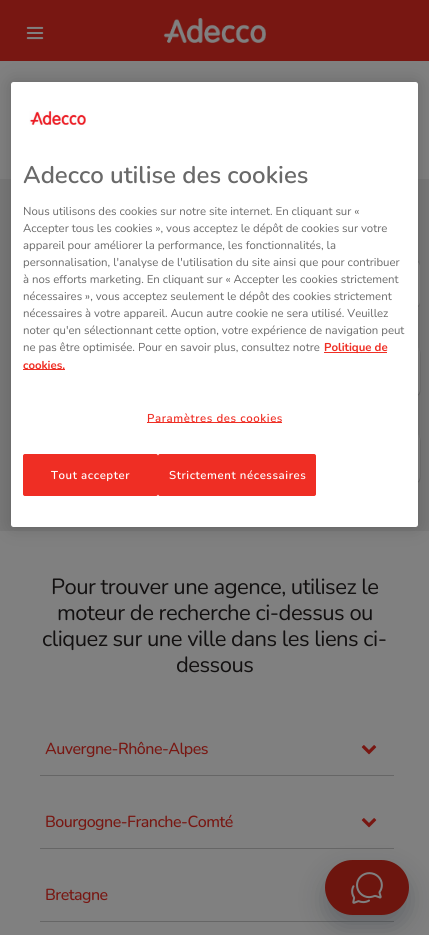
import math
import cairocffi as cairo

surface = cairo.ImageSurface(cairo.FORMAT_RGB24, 429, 935)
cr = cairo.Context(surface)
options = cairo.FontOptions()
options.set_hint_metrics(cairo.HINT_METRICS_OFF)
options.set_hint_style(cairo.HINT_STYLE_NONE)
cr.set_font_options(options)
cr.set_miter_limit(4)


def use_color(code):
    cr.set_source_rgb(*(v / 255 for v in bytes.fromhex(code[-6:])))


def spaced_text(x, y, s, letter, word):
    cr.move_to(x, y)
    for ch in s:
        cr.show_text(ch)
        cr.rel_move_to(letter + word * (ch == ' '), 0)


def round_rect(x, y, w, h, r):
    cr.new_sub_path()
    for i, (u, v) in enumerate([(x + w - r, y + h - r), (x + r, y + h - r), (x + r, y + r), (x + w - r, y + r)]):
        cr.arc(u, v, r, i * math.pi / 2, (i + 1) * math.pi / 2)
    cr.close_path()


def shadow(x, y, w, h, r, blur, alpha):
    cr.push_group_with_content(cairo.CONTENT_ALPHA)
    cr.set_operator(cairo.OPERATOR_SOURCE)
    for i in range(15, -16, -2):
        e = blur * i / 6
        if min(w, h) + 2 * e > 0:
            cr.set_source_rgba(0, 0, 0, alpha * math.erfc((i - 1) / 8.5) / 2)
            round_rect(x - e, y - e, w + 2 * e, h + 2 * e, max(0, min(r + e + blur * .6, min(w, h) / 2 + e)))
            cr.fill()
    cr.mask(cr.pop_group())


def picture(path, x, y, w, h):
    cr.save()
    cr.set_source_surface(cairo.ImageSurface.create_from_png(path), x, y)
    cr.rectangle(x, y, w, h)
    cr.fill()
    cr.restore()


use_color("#808080")
cr.paint()
use_color("#781712")
cr.rectangle(0, 0, 429, 61)
cr.fill()
use_color("#787878")
cr.rectangle(0, 179, 429, 352)
cr.fill()
use_color("#808080")
round_rect(15, 259, 405, 50, 7)
cr.fill()
use_color("#595959")
cr.set_fill_rule(cairo.FILL_RULE_EVEN_ODD)
cr.new_path()
cr.move_to(22, 259)
cr.line_to(413, 259)
cr.curve_to(417, 259, 420, 262, 420, 266)
cr.line_to(420, 302)
cr.curve_to(420, 306, 417, 309, 413, 309)
cr.line_to(22, 309)
cr.curve_to(18, 309, 15, 306, 15, 302)
cr.line_to(15, 266)
cr.curve_to(15, 262, 18, 259, 22, 259)
cr.close_path()
cr.move_to(22, 260)
cr.line_to(413, 260)
cr.curve_to(417, 260, 420, 263, 420, 266)
cr.line_to(420, 302)
cr.curve_to(420, 305, 417, 308, 413, 308)
cr.line_to(22, 308)
cr.curve_to(19, 308, 16, 305, 16, 302)
cr.line_to(16, 266)
cr.curve_to(16, 263, 19, 260, 22, 260)
cr.close_path()
cr.fill()
use_color("#595959")
shadow(15, 347, 405, 50, 6, 0.5, 1)
use_color("#808080")
round_rect(15, 346, 405, 50, 6)
cr.fill()
use_color("#595959")
shadow(15, 434, 405, 50, 6, 0.5, 1)
use_color("#808080")
round_rect(15, 433, 405, 50, 6)
cr.fill()
use_color("#000000")
shadow(11, 82, 407, 445, 2.5, 9, 0.2)
use_color("#ffffff")
round_rect(11, 82, 407, 445, 2.5)
cr.fill()
picture("img1.png", 29, 111, 57, 14)
cr.select_font_face("Nunito SemiBold")
cr.set_font_size(24)
use_color("#696969")
cr.move_to(23, 183)
cr.show_text("Adecco utilise des cookies")
cr.select_font_face("Nunito")
cr.set_font_size(11.4)
cr.move_to(23, 215)
cr.show_text("Nous utilisons des cookies sur notre site internet. En cliquant sur «")
cr.move_to(23, 232)
cr.show_text("Accepter tous les cookies », vous acceptez le dépôt de cookies sur votre")
cr.move_to(23, 249)
cr.show_text("appareil pour améliorer la performance, les fonctionnalités, la")
cr.move_to(23, 266)
cr.show_text("personnalisation, l'analyse de l'utilisation du site ainsi que pour contribuer")
cr.move_to(23, 283)
cr.show_text("à nos efforts marketing. En cliquant sur « Accepter les cookies strictement")
cr.move_to(23, 300)
cr.show_text("nécessaires », vous acceptez seulement le dépôt des cookies strictement")
cr.move_to(23, 317)
cr.show_text("nécessaires à votre appareil. Aucun autre cookie ne sera utilisé. Veuillez")
cr.move_to(23, 334)
cr.show_text("noter qu'en sélectionnant cette option, votre expérience de navigation peut")
cr.move_to(23, 351)
cr.show_text("ne pas être optimisée. Pour en savoir plus, consultez notre")
use_color("#ef2e24")
cr.rectangle(324, 352, 63, 1)
cr.fill()
cr.select_font_face("Nunito", cairo.FONT_SLANT_NORMAL, cairo.FONT_WEIGHT_BOLD)
cr.move_to(324, 351)
cr.show_text("Politique de")
cr.rectangle(23, 369, 42, 1)
cr.fill()
cr.move_to(23, 369)
cr.show_text("cookies.")
cr.rectangle(147, 422, 135, 1)
cr.fill()
cr.select_font_face("Nunito SemiBold")
spaced_text(147, 422, "Paramètres des cookies", 0.6, 0)
round_rect(23.5, 454.5, 134, 41, 1.5)
cr.fill_preserve()
cr.set_line_width(1)
cr.stroke()
use_color("#ffffff")
spaced_text(51, 479, "Tout accepter", 0.6, 0)
use_color("#ef2e24")
round_rect(158.5, 454.5, 157, 41, 1.5)
cr.fill_preserve()
cr.stroke()
use_color("#ffffff")
spaced_text(169, 479, "Strictement nécessaires", 0.6, 0)
picture("img2.png", 26, 26, 18, 14)
picture("img3.png", 163, 18, 103, 25)
cr.select_font_face("Nunito")
cr.set_font_size(22)
use_color("#121010")
spaced_text(51, 594, "Pour trouver une agence, utilisez le", -0.5, 0)
spaced_text(57, 620, "moteur de recherche ci-dessus ou", -0.5, 0)
spaced_text(42, 646, "cliquez sur une ville dans les liens ci-", -0.5, 0)
spaced_text(176, 672, "dessous", -0.5, 0)
use_color("#666666")
cr.rectangle(40, 775, 354, 1)
cr.fill()
cr.select_font_face("Nunito Medium")
cr.set_font_size(16)
use_color("#781712")
spaced_text(45, 754, "Auvergne-Rhône-Alpes", -0.5, 0)
picture("img4.png", 361, 745, 16, 10)
use_color("#666666")
cr.rectangle(40, 848, 354, 1)
cr.fill()
use_color("#781712")
spaced_text(45, 827, "Bourgogne-Franche-Comté", -0.5, 0)
picture("img4.png", 361, 818, 16, 10)
use_color("#666666")
cr.rectangle(40, 921, 354, 1)
cr.fill()
use_color("#781712")
spaced_text(45, 900, "Bretagne", -0.5, 0)
use_color("#0e1826")
shadow(325, 872, 84, 55, 27.5, 12.5, 0.25)
use_color("#6d150e")
round_rect(325, 860, 84, 55, 27.5)
cr.fill()
picture("img5.png", 351, 872, 32, 32)
surface.write_to_png("result.png")
